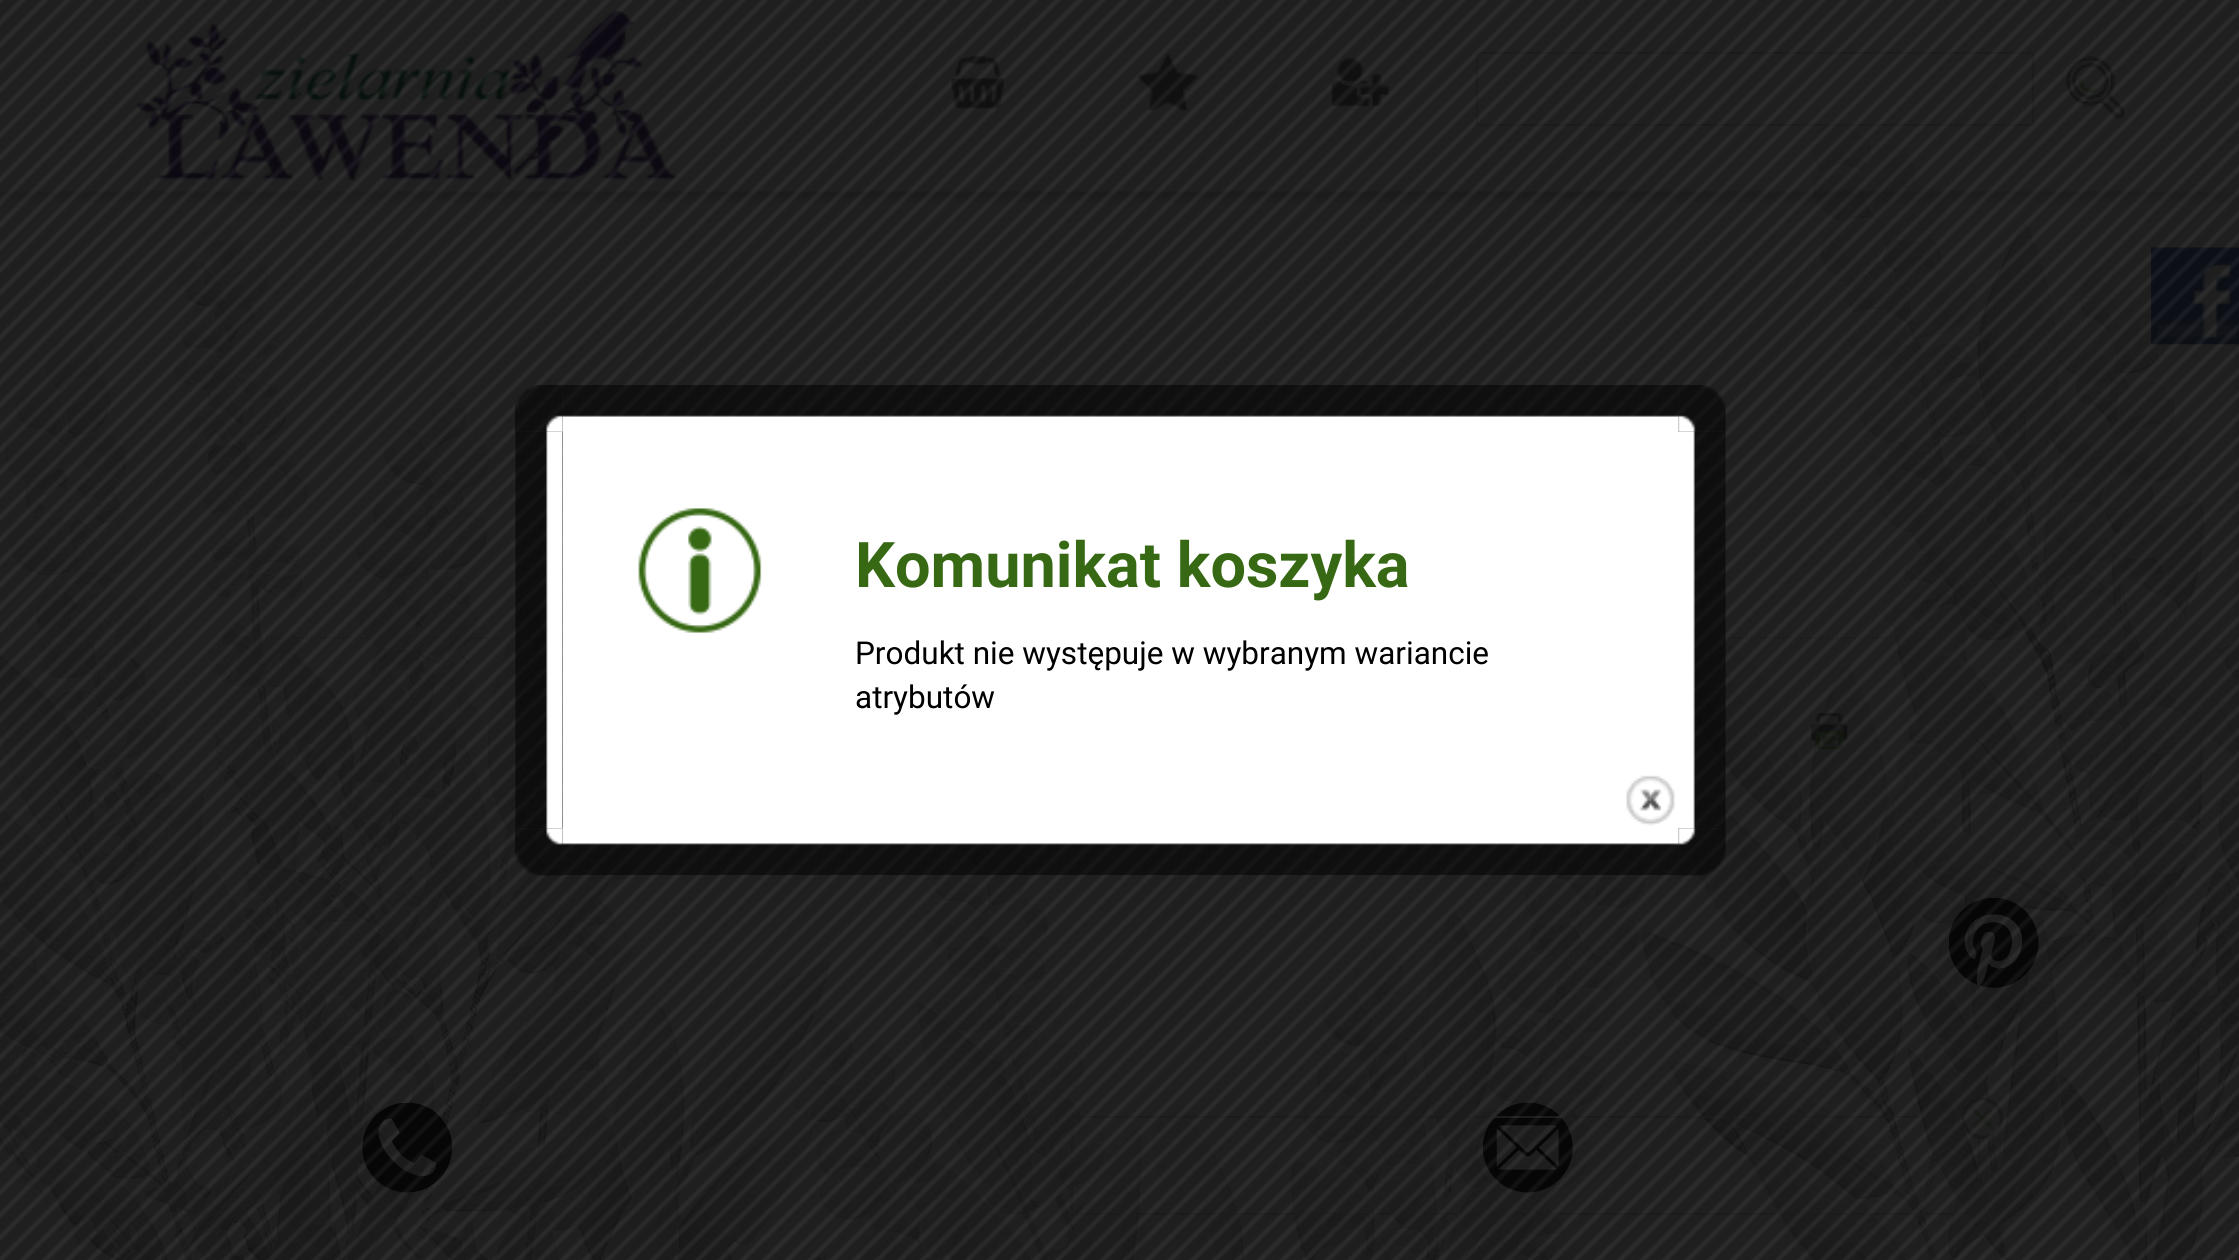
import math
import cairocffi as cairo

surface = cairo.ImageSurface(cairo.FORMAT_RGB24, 2239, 1260)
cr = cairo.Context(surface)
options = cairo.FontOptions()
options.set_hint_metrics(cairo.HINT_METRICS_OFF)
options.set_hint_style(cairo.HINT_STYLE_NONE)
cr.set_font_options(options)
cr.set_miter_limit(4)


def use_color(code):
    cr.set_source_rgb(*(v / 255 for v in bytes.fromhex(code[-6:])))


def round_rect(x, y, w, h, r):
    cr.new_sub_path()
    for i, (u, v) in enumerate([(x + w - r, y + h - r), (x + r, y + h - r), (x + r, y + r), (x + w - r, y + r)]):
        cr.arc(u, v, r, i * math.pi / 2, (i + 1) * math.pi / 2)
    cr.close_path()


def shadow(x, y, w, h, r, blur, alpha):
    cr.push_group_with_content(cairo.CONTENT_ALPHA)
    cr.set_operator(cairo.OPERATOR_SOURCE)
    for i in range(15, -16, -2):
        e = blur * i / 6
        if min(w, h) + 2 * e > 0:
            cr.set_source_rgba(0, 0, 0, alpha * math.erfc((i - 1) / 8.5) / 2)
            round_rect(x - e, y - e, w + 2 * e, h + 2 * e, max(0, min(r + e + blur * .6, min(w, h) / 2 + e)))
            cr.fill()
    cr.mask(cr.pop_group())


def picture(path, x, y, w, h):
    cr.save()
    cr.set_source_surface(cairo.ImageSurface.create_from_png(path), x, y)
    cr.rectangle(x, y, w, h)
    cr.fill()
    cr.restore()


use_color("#ffffff")
cr.paint()
picture("img1.png", 0, 0, 2239, 1260)
picture("img2.png", 0, 190, 2239, 15)
picture("img3.png", 136, 11, 540, 169)
picture("img4.png", 951, 55, 54, 54)
picture("img5.png", 1138, 53, 60, 58)
picture("img6.png", 1331, 58, 58, 49)
cr.rectangle(1477, 53, 556, 72)
use_color("#dbdbdb")
cr.stroke()
picture("img7.png", 2065, 55, 59, 65)
picture("img8.png", 0, 333, 2239, 509)
cr.new_path()
cr.move_to(247.5, 638)
cr.line_to(1993.5, 638)
cr.set_line_width(2.2)
cr.set_dash([2.25, 2.25])
cr.stroke()
picture("img9.png", 1811, 713, 37, 37)
picture("img10.png", 1949, 898, 90, 90)
picture("img13.png", 1483, 1103, 90, 90)
cr.rectangle(1072, 1117, 907, 97)
cr.set_line_width(2)
cr.set_dash([])
cr.stroke()
picture("img11.png", 1961, 1097, 43, 43)
picture("img12.png", 362, 1103, 90, 90)
use_color("#dbdbdb")
shadow(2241, 248, 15, 675, 0, 5.5, 1)
picture("img25.png", 2151, 247, 88, 98)
picture("img14.png", 0, 0, 2239, 1260)
picture("img15.png", 515, 385, 49, 48)
picture("img16.png", 562, 385, 1117, 47)
picture("img17.png", 1678, 385, 48, 48)
picture("img18.png", 515, 432, 48, 396)
picture("img22.png", 515, 827, 49, 49)
picture("img21.png", 1679, 432, 47, 396)
picture("img23.png", 562, 828, 1117, 47)
picture("img24.png", 1678, 827, 48, 49)
use_color("#ffffff")
cr.rectangle(563, 432, 1116, 396)
cr.fill()
picture("img19.png", 638, 508, 124, 125)
cr.select_font_face("Roboto", cairo.FONT_SLANT_NORMAL, cairo.FONT_WEIGHT_BOLD)
cr.set_font_size(63)
use_color("#376914")
cr.move_to(855, 587)
cr.show_text("Komunikat koszyka")
cr.select_font_face("Roboto")
cr.set_font_size(31.5)
use_color("#000000")
cr.move_to(855, 664)
cr.show_text("Produkt nie występuje w wybranym wariancie")
cr.move_to(855, 708)
cr.show_text("atrybutów")
picture("img20.png", 1626, 775, 49, 51)
surface.write_to_png("result.png")
